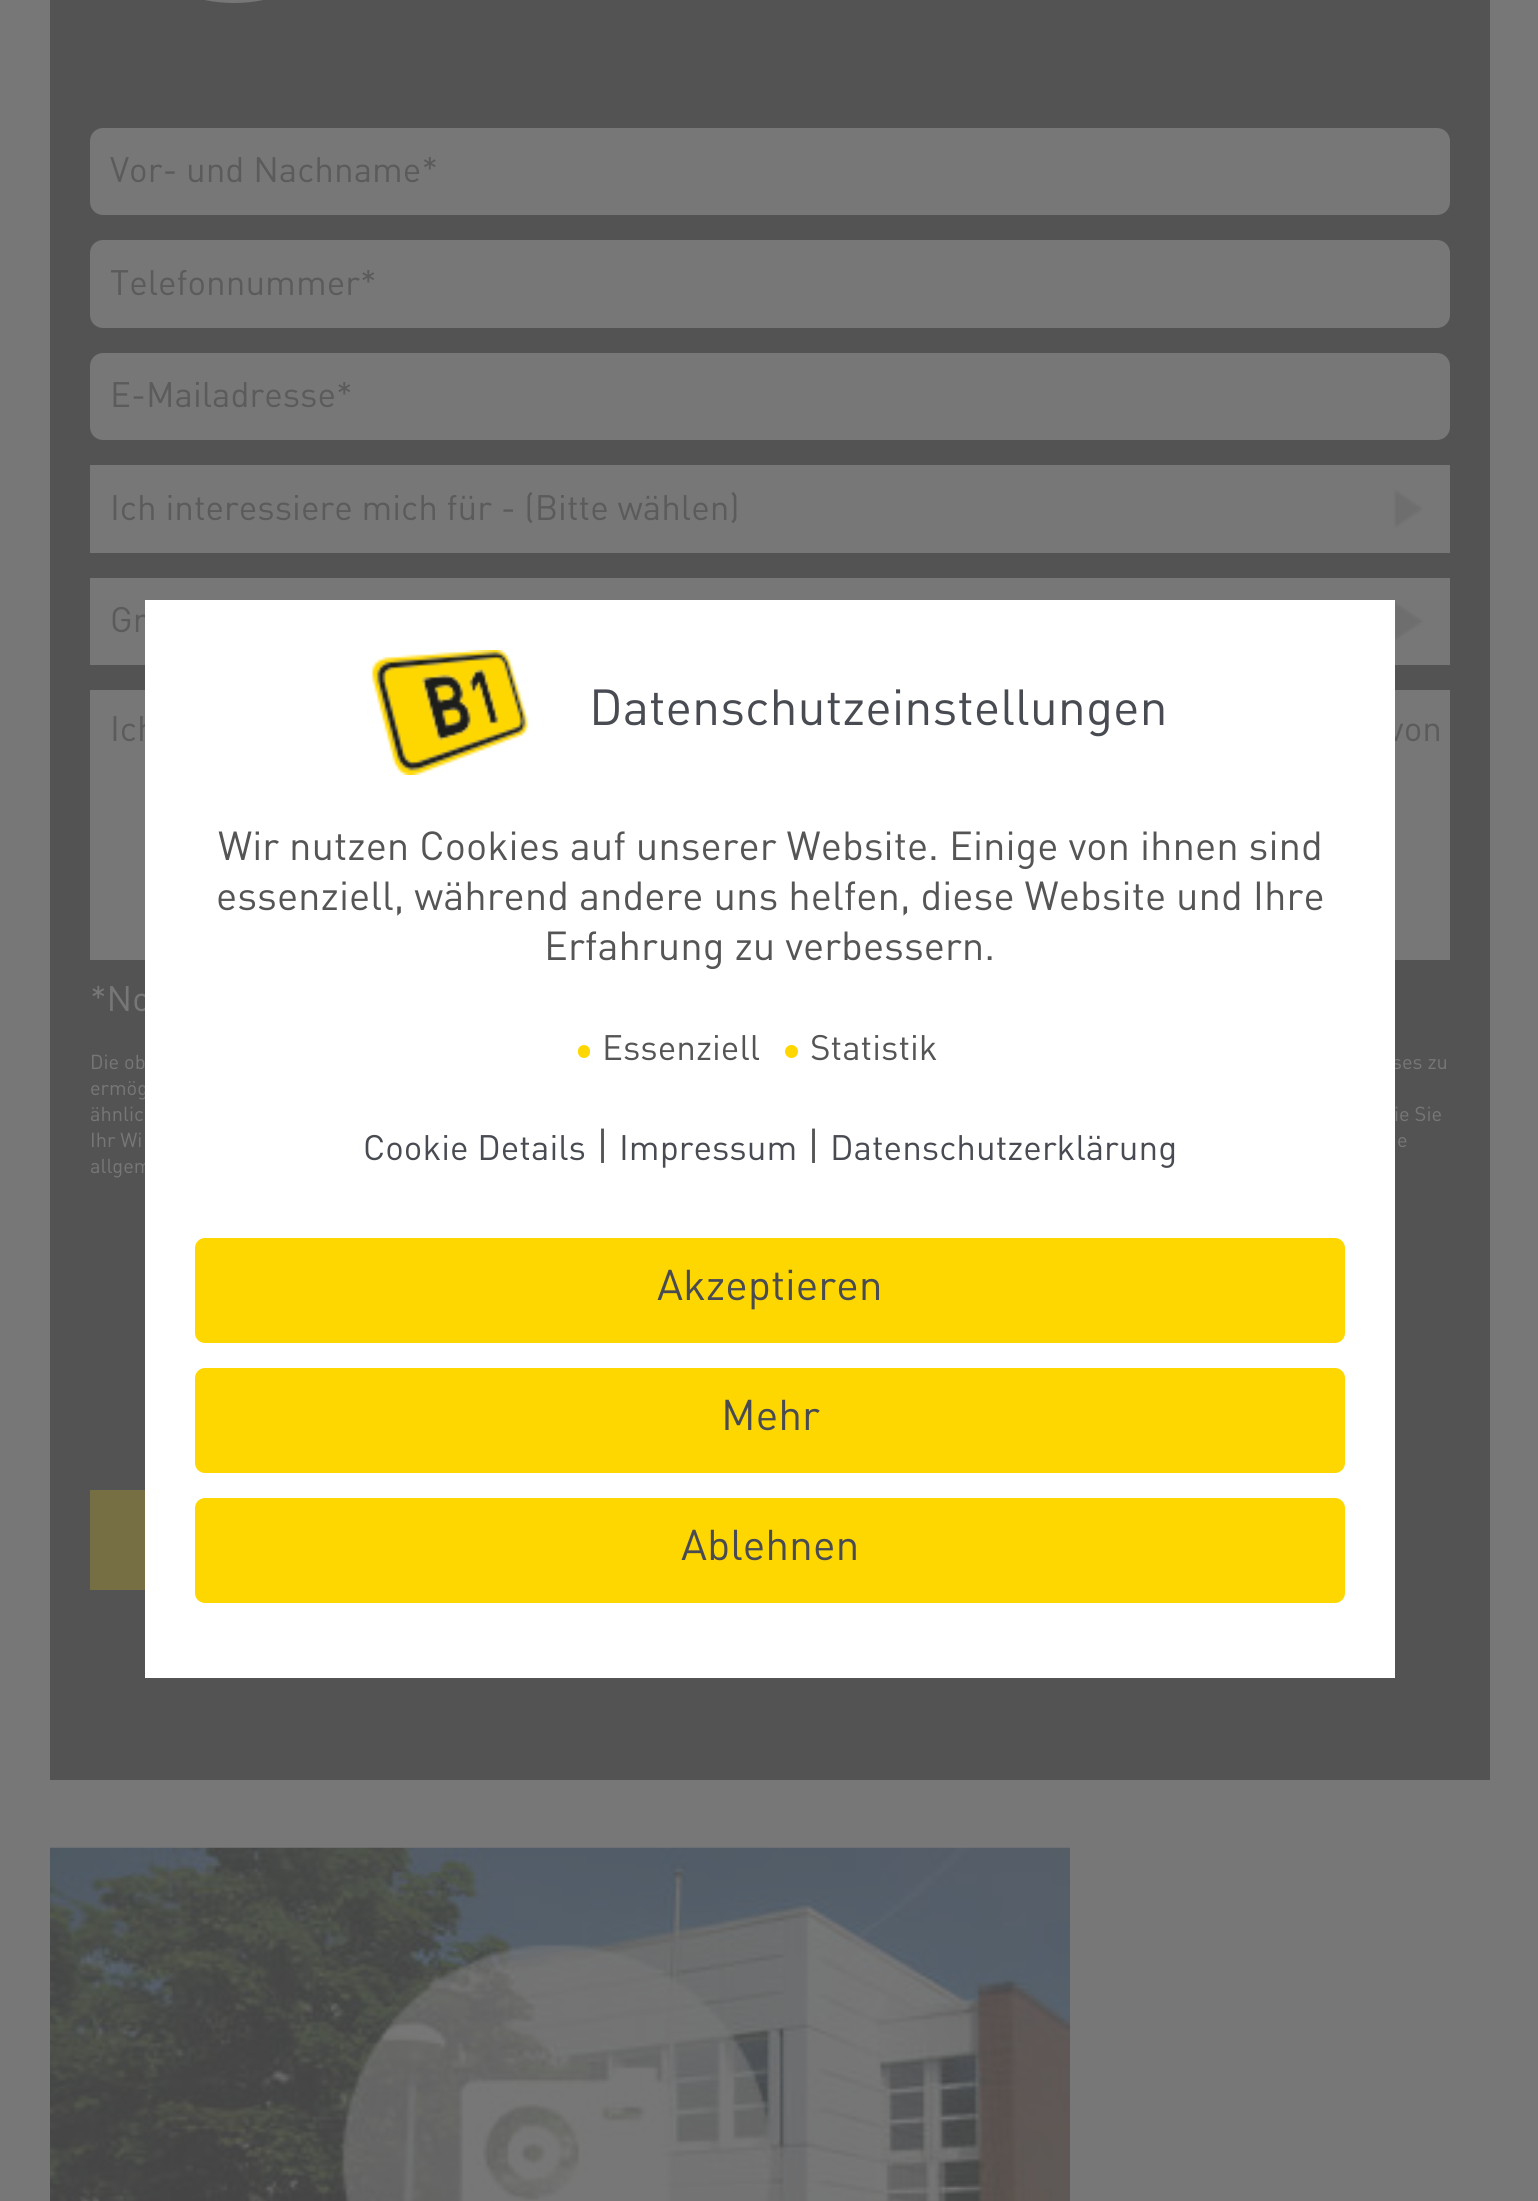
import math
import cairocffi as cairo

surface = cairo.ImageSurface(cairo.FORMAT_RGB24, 1538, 2201)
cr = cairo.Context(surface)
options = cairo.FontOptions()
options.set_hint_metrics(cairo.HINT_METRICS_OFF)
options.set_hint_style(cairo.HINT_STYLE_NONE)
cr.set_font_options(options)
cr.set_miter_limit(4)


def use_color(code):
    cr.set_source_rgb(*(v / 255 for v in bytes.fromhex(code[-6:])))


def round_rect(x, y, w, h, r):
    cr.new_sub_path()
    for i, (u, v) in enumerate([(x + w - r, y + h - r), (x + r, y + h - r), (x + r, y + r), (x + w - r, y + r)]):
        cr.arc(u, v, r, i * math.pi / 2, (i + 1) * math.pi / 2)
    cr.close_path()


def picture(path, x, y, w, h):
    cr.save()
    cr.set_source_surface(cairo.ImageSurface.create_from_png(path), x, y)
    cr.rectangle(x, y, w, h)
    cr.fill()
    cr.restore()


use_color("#777777")
cr.paint()
use_color("#535354")
cr.rectangle(50, 0, 1440, 1780)
cr.fill()
round_rect(91.5, -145.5, 285, 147, 142.5)
use_color("#777777")
cr.set_line_width(3)
cr.stroke()
round_rect(90, 128, 1360, 87, 13)
cr.fill()
cr.select_font_face("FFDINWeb")
cr.set_font_size(35)
use_color("#5b5b5b")
cr.move_to(110, 182)
cr.show_text("Vor- und Nachname*")
use_color("#777777")
round_rect(90, 240, 1360, 88, 13)
cr.fill()
use_color("#5b5b5b")
cr.move_to(110, 295)
cr.show_text("Telefonnummer*")
use_color("#777777")
round_rect(90, 353, 1360, 87, 13)
cr.fill()
use_color("#5b5b5b")
cr.move_to(110, 407)
cr.show_text("E-Mailadresse*")
use_color("#777777")
cr.rectangle(90, 465, 1360, 88)
cr.fill()
picture("img1.png", 1393, 489, 30, 39)
use_color("#5b5b5b")
cr.move_to(110, 520)
cr.show_text("Ich interessiere mich für - (Bitte wählen)")
use_color("#777777")
cr.rectangle(90, 578, 1360, 87)
cr.fill()
picture("img2.png", 1395, 602, 29, 39)
use_color("#5b5b5b")
cr.move_to(110, 632)
cr.show_text("Gr")
use_color("#777777")
cr.rectangle(90, 690, 1360, 270)
cr.fill()
use_color("#5b5b5b")
cr.move_to(110, 741)
cr.show_text("Ich")
cr.move_to(1388, 741)
cr.show_text("von")
use_color("#777777")
cr.move_to(90, 1011)
cr.show_text("*No")
cr.set_font_size(20)
cr.move_to(90, 1069)
cr.show_text("Die ob")
cr.move_to(1392, 1069)
cr.show_text("ses zu")
cr.move_to(90, 1095)
cr.show_text("ermög")
cr.move_to(90, 1121)
cr.show_text("ähnlic")
cr.move_to(1394, 1121)
cr.show_text("ie Sie")
cr.move_to(90, 1147)
cr.show_text("Ihr Wi")
cr.move_to(1397, 1147)
cr.show_text("e")
cr.move_to(90, 1173)
cr.show_text("allgem")
use_color("#776f44")
cr.rectangle(90, 1490, 55, 100)
cr.fill()
picture("img3.png", 50, 1847, 1020, 354)
use_color("#ffffff")
cr.rectangle(145, 600, 1250, 1078)
cr.fill()
picture("img4.png", 371, 650, 158, 125)
cr.set_font_size(50)
use_color("#494b52")
cr.move_to(589, 725)
cr.show_text("Datenschutzeinstellungen")
cr.set_font_size(40)
use_color("#555555")
cr.move_to(218, 860)
cr.show_text("Wir nutzen Cookies auf unserer Website. Einige von ihnen sind")
cr.move_to(216, 910)
cr.show_text("essenziell, während andere uns helfen, diese Website und Ihre")
cr.move_to(544, 960)
cr.show_text("Erfahrung zu verbessern.")
use_color("#ffd700")
round_rect(578, 1045, 12, 13, 6)
cr.fill()
cr.set_font_size(35)
use_color("#555555")
cr.move_to(602, 1060)
cr.show_text("Essenziell")
use_color("#ffd700")
cr.new_path()
cr.arc(791.5, 1051.5, 6.5, 0, 2 * math.pi)
cr.fill()
use_color("#555555")
cr.move_to(810, 1060)
cr.show_text("Statistik")
use_color("#494b52")
cr.move_to(363, 1160)
cr.show_text("Cookie Details")
cr.set_font_size(40)
use_color("#555555")
cr.move_to(596, 1160)
cr.show_text("|")
cr.set_font_size(35)
use_color("#494b52")
cr.move_to(619, 1160)
cr.show_text("Impressum")
cr.set_font_size(40)
use_color("#555555")
cr.move_to(807, 1160)
cr.show_text("|")
cr.set_font_size(35)
use_color("#494b52")
cr.move_to(830, 1160)
cr.show_text("Datenschutzerklärung")
use_color("#ffd700")
round_rect(195, 1238, 1150, 105, 10)
cr.fill()
cr.set_font_size(42.5)
use_color("#494b52")
cr.move_to(657, 1300)
cr.show_text("Akzeptieren")
use_color("#ffd700")
round_rect(195, 1368, 1150, 105, 10)
cr.fill()
use_color("#494b52")
cr.move_to(721, 1430)
cr.show_text("Mehr")
use_color("#ffd700")
round_rect(195, 1498, 1150, 105, 10)
cr.fill()
use_color("#494b52")
cr.move_to(681, 1560)
cr.show_text("Ablehnen")
surface.write_to_png("result.png")
